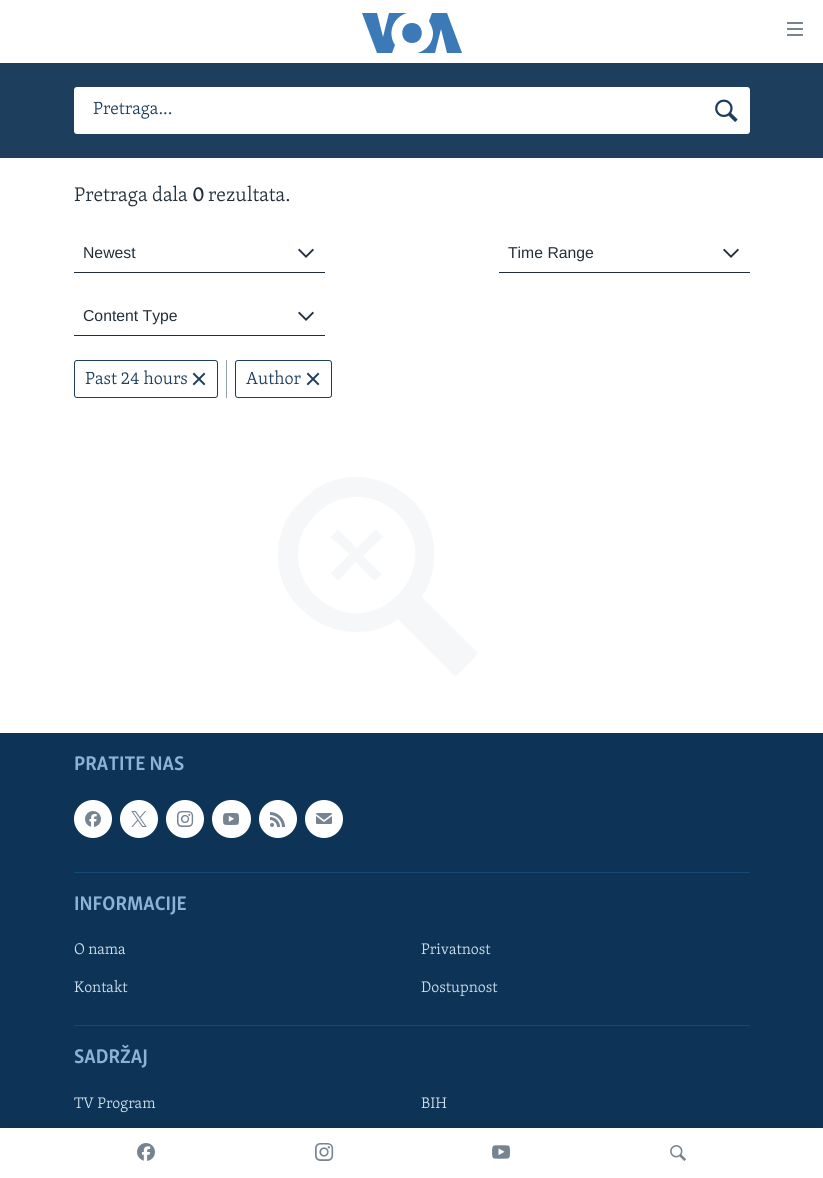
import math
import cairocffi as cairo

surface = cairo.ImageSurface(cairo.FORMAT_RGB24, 823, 1178)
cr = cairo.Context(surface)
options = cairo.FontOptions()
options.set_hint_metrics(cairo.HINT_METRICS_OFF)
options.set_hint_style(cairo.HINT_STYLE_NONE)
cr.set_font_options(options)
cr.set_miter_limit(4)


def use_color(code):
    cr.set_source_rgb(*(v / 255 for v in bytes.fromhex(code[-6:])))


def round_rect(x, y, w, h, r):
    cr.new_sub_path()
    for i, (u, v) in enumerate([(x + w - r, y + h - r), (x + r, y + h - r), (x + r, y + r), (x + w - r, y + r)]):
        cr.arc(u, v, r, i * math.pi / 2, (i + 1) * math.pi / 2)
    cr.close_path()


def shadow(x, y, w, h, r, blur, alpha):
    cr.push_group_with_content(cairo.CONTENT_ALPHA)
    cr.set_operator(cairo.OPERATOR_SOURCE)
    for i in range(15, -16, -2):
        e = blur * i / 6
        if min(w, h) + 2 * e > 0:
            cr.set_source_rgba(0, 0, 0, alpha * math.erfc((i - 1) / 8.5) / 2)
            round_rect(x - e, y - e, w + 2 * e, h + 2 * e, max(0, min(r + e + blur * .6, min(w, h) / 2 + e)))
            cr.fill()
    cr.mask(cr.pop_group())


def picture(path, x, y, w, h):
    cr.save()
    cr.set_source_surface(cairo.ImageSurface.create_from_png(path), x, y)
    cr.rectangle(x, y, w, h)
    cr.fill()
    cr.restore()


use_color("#ffffff")
cr.paint()
use_color("#3b79b7")
cr.new_path()
cr.move_to(395, 45)
cr.line_to(392, 53)
cr.line_to(377, 53)
cr.line_to(362, 13)
cr.line_to(377, 13)
cr.line_to(383, 37)
cr.line_to(389, 13)
cr.line_to(407, 13)
cr.curve_to(393, 17, 387, 33, 395, 45)
cr.close_path()
cr.move_to(412, 23)
cr.curve_to(399, 23, 399, 43, 412, 43)
cr.curve_to(425, 43, 425, 23, 412, 23)
cr.close_path()
cr.move_to(433, 33)
cr.curve_to(433, 43, 426, 51, 417, 53)
cr.line_to(435, 53)
cr.line_to(441, 29)
cr.line_to(447, 53)
cr.line_to(462, 53)
cr.line_to(447, 13)
cr.line_to(432, 13)
cr.line_to(429, 21)
cr.curve_to(431, 25, 433, 29, 433, 33)
cr.close_path()
cr.fill()
picture("img1.png", 787, 22, 16, 14)
use_color("#0d3456")
cr.rectangle(0, 733, 823, 395)
cr.fill()
use_color("#000000")
shadow(0, 1128, 823, 50, 0, 10, 0.1)
use_color("#ffffff")
cr.rectangle(0, 1128, 823, 50)
cr.fill()
picture("img2.png", 137, 1143, 18, 18)
picture("img3.png", 315, 1143, 19, 18)
picture("img4.png", 492, 1145, 18, 14)
picture("img5.png", 670, 1145, 16, 16)
use_color("#1d3e5c")
cr.rectangle(0, 63, 823, 95)
cr.fill()
use_color("#ffffff")
round_rect(74.5, 87.5, 675, 46, 2.5)
cr.fill_preserve()
cr.set_line_width(1)
cr.stroke()
cr.select_font_face("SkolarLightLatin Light")
cr.set_font_size(18)
use_color("#1d3e5c")
cr.move_to(93, 114)
cr.show_text("Pretraga...")
picture("img6.png", 715, 99, 23, 23)
cr.set_font_size(20.25)
use_color("#222f3a")
cr.move_to(74, 201)
cr.show_text("Pretraga dala")
cr.select_font_face("SkolarLightLatin", cairo.FONT_SLANT_NORMAL, cairo.FONT_WEIGHT_BOLD)
cr.move_to(192, 201)
cr.show_text("0")
cr.select_font_face("SkolarLightLatin Light")
cr.move_to(208, 201)
cr.show_text("rezultata.")
cr.rectangle(74, 272, 251, 1)
cr.fill()
cr.select_font_face("Liberation Sans")
cr.set_font_size(15.75)
cr.move_to(83, 258)
cr.show_text("Newest")
picture("img7.png", 298, 248, 16, 10)
cr.rectangle(499, 272, 251, 1)
cr.fill()
cr.move_to(508, 258)
cr.show_text("Time Range")
picture("img7.png", 723, 248, 16, 10)
cr.rectangle(74, 335, 251, 1)
cr.fill()
cr.move_to(83, 321)
cr.show_text("Content Type")
picture("img7.png", 298, 311, 16, 10)
round_rect(74.5, 360.5, 143, 37, 2.5)
use_color("#1d3e5c")
cr.stroke()
cr.select_font_face("SkolarLightLatin Light")
cr.set_font_size(18)
cr.move_to(85, 384)
cr.show_text("Past 24 hours")
picture("img8.png", 192, 372, 14, 14)
use_color("#8e9fae")
cr.rectangle(226, 360, 1, 38)
cr.fill()
round_rect(235.5, 360.5, 96, 37, 2.5)
use_color("#1d3e5c")
cr.stroke()
cr.move_to(246, 384)
cr.show_text("Author")
picture("img8.png", 306, 372, 14, 14)
picture("img9.png", 278, 477, 199, 199)
cr.select_font_face("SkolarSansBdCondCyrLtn", cairo.FONT_SLANT_NORMAL, cairo.FONT_WEIGHT_BOLD)
cr.set_font_size(20.25)
use_color("#8db3d4")
cr.move_to(74, 770)
cr.show_text("PRATITE NAS")
use_color("#ffffff")
cr.new_path()
cr.arc(93, 819, 19, 0, 2 * math.pi)
cr.fill()
picture("img10.png", 85, 811, 16, 16)
cr.arc(139, 819, 19, 0, 2 * math.pi)
cr.fill()
picture("img11.png", 131, 811, 16, 16)
cr.arc(185, 819, 19, 0, 2 * math.pi)
cr.fill()
picture("img12.png", 177, 811, 17, 16)
round_rect(212, 800, 39, 38, 19)
cr.fill()
picture("img13.png", 223, 813, 16, 12)
cr.arc(278, 819, 19, 0, 2 * math.pi)
cr.fill()
picture("img14.png", 270, 812, 15, 15)
cr.arc(324, 819, 19, 0, 2 * math.pi)
cr.fill()
picture("img15.png", 316, 813, 16, 11)
use_color("#134976")
cr.rectangle(74, 872, 676, 1)
cr.fill()
use_color("#8db3d4")
cr.move_to(74, 910)
cr.show_text("INFORMACIJE")
cr.select_font_face("SkolarLightLatin Light")
cr.set_font_size(15.75)
use_color("#d1e1ee")
cr.move_to(74, 954)
cr.show_text("O nama")
cr.move_to(421, 954)
cr.show_text("Privatnost")
cr.move_to(74, 992)
cr.show_text("Kontakt")
cr.move_to(421, 992)
cr.show_text("Dostupnost")
use_color("#134976")
cr.rectangle(74, 1025, 676, 1)
cr.fill()
cr.select_font_face("SkolarSansBdCondCyrLtn", cairo.FONT_SLANT_NORMAL, cairo.FONT_WEIGHT_BOLD)
cr.set_font_size(20.25)
use_color("#8db3d4")
cr.move_to(74, 1063)
cr.show_text("SADRŽAJ")
cr.select_font_face("SkolarLightLatin Light")
cr.set_font_size(15.75)
use_color("#d1e1ee")
cr.move_to(74, 1108)
cr.show_text("TV Program")
cr.move_to(421, 1108)
cr.show_text("BIH")
surface.write_to_png("result.png")
